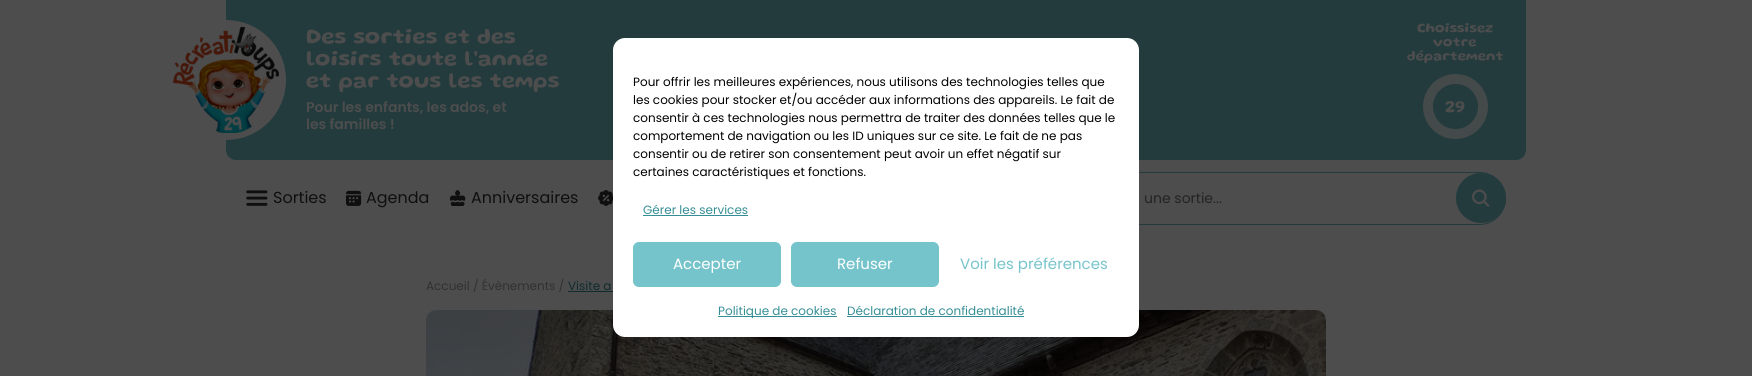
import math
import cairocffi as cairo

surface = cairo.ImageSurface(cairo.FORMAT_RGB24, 1752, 376)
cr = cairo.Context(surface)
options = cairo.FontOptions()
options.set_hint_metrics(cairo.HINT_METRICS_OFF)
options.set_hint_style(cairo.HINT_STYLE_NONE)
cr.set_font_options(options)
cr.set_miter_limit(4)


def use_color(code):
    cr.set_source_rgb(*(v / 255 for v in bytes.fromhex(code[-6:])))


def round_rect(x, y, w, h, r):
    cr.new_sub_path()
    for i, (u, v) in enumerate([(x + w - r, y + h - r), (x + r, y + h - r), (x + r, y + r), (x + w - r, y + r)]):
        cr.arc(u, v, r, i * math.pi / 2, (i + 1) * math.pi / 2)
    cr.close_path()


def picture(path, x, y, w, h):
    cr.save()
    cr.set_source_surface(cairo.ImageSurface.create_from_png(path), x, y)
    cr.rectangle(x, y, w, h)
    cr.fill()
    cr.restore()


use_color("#4d4d4d")
cr.paint()
use_color("#233b3d")
cr.new_path()
cr.move_to(226, 0)
cr.line_to(1526, 0)
cr.line_to(1526, 150)
cr.curve_to(1526, 155.5, 1521.5, 160, 1516, 160)
cr.line_to(236, 160)
cr.curve_to(230.5, 160, 226, 155.5, 226, 150)
cr.close_path()
cr.fill()
use_color("#4d4d4d")
cr.arc(226, 80, 60, 0, 2 * math.pi)
cr.fill()
picture("img1.png", 173, 27, 106, 106)
cr.select_font_face("Gluten SemiBold")
cr.set_font_size(22)
cr.move_to(306, 43)
cr.show_text("Des sorties et des")
cr.move_to(306, 65)
cr.show_text("loisirs toute l'année")
cr.move_to(306, 87)
cr.show_text("et par tous les temps")
cr.select_font_face("Poppins SemiBold")
cr.set_font_size(14)
cr.move_to(306, 112)
cr.show_text("Pour les enfants, les ados, et")
cr.move_to(306, 129)
cr.show_text("les familles !")
cr.select_font_face("Gluten SemiBold")
cr.move_to(1417, 32)
cr.show_text("Choissisez")
cr.move_to(1433, 46)
cr.show_text("votre")
cr.move_to(1407, 60)
cr.show_text("département")
use_color("#44494a")
cr.new_path()
cr.arc(1455.5, 106.5, 32.5, 0, 2 * math.pi)
cr.fill()
use_color("#233b3d")
cr.arc(1455.5, 106.5, 22.5, 0, 2 * math.pi)
cr.fill()
cr.set_font_size(18)
use_color("#4d4d4d")
cr.move_to(1445, 112)
cr.show_text("29")
round_rect(1038.5, 172.5, 467, 52, 26)
use_color("#233b3d")
cr.set_line_width(1)
cr.stroke()
picture("img7.png", 426, 310, 900, 66)
use_color("#ffffff")
round_rect(613, 38, 526, 299, 12)
cr.fill()
cr.select_font_face("Poppins")
cr.set_font_size(12)
use_color("#000000")
cr.move_to(633, 86)
cr.show_text("Pour offrir les meilleures expériences, nous utilisons des technologies telles que")
cr.move_to(633, 104)
cr.show_text("les cookies pour stocker et/ou accéder aux informations des appareils. Le fait de")
cr.move_to(633, 122)
cr.show_text("consentir à ces technologies nous permettra de traiter des données telles que le")
cr.move_to(633, 140)
cr.show_text("comportement de navigation ou les ID uniques sur ce site. Le fait de ne pas")
cr.move_to(633, 158)
cr.show_text("consentir ou de retirer son consentement peut avoir un effet négatif sur")
cr.move_to(633, 176)
cr.show_text("certaines caractéristiques et fonctions.")
use_color("#358e96")
cr.move_to(643, 214)
cr.show_text("Gérer les services")
cr.rectangle(643, 215, 105, 1)
cr.fill()
use_color("#76c4cb")
round_rect(633.5, 242.5, 147, 44, 5.5)
cr.fill_preserve()
cr.stroke()
cr.set_font_size(15)
use_color("#ffffff")
cr.move_to(673, 269)
cr.show_text("Accepter")
use_color("#76c4cb")
round_rect(791.5, 242.5, 147, 44, 5.5)
cr.fill_preserve()
cr.stroke()
use_color("#ffffff")
cr.move_to(837, 269)
cr.show_text("Refuser")
use_color("#76c4cb")
cr.move_to(960, 269)
cr.show_text("Voir les préférences")
use_color("#358e96")
cr.rectangle(718, 316, 119, 1)
cr.fill()
cr.set_font_size(12)
cr.move_to(718, 315)
cr.show_text("Politique de cookies")
cr.move_to(847, 315)
cr.show_text("Déclaration de confidentialité")
cr.rectangle(847, 316, 177, 1)
cr.fill()
picture("img2.png", 246, 190, 22, 16)
cr.set_font_size(16)
use_color("#0f0f0f")
cr.move_to(273, 203)
cr.show_text("Sorties")
picture("img3.png", 346, 190, 16, 16)
cr.move_to(366, 203)
cr.show_text("Agenda")
picture("img4.png", 450, 190, 16, 16)
cr.move_to(471, 203)
cr.show_text("Anniversaires")
picture("img5.png", 598, 190, 15, 16)
cr.set_font_size(14)
use_color("#232323")
cr.move_to(1144, 203)
cr.show_text("une sortie...")
use_color("#233b3d")
cr.new_path()
cr.arc(1481, 198, 25, 0, 2 * math.pi)
cr.fill()
picture("img6.png", 1472, 189, 18, 18)
cr.set_font_size(12)
use_color("#313131")
cr.move_to(426, 290)
cr.show_text("Accueil / Évènements /")
use_color("#102b2d")
cr.move_to(568, 290)
cr.show_text("Visite a")
cr.rectangle(568, 291, 45, 1)
cr.fill()
surface.write_to_png("result.png")
